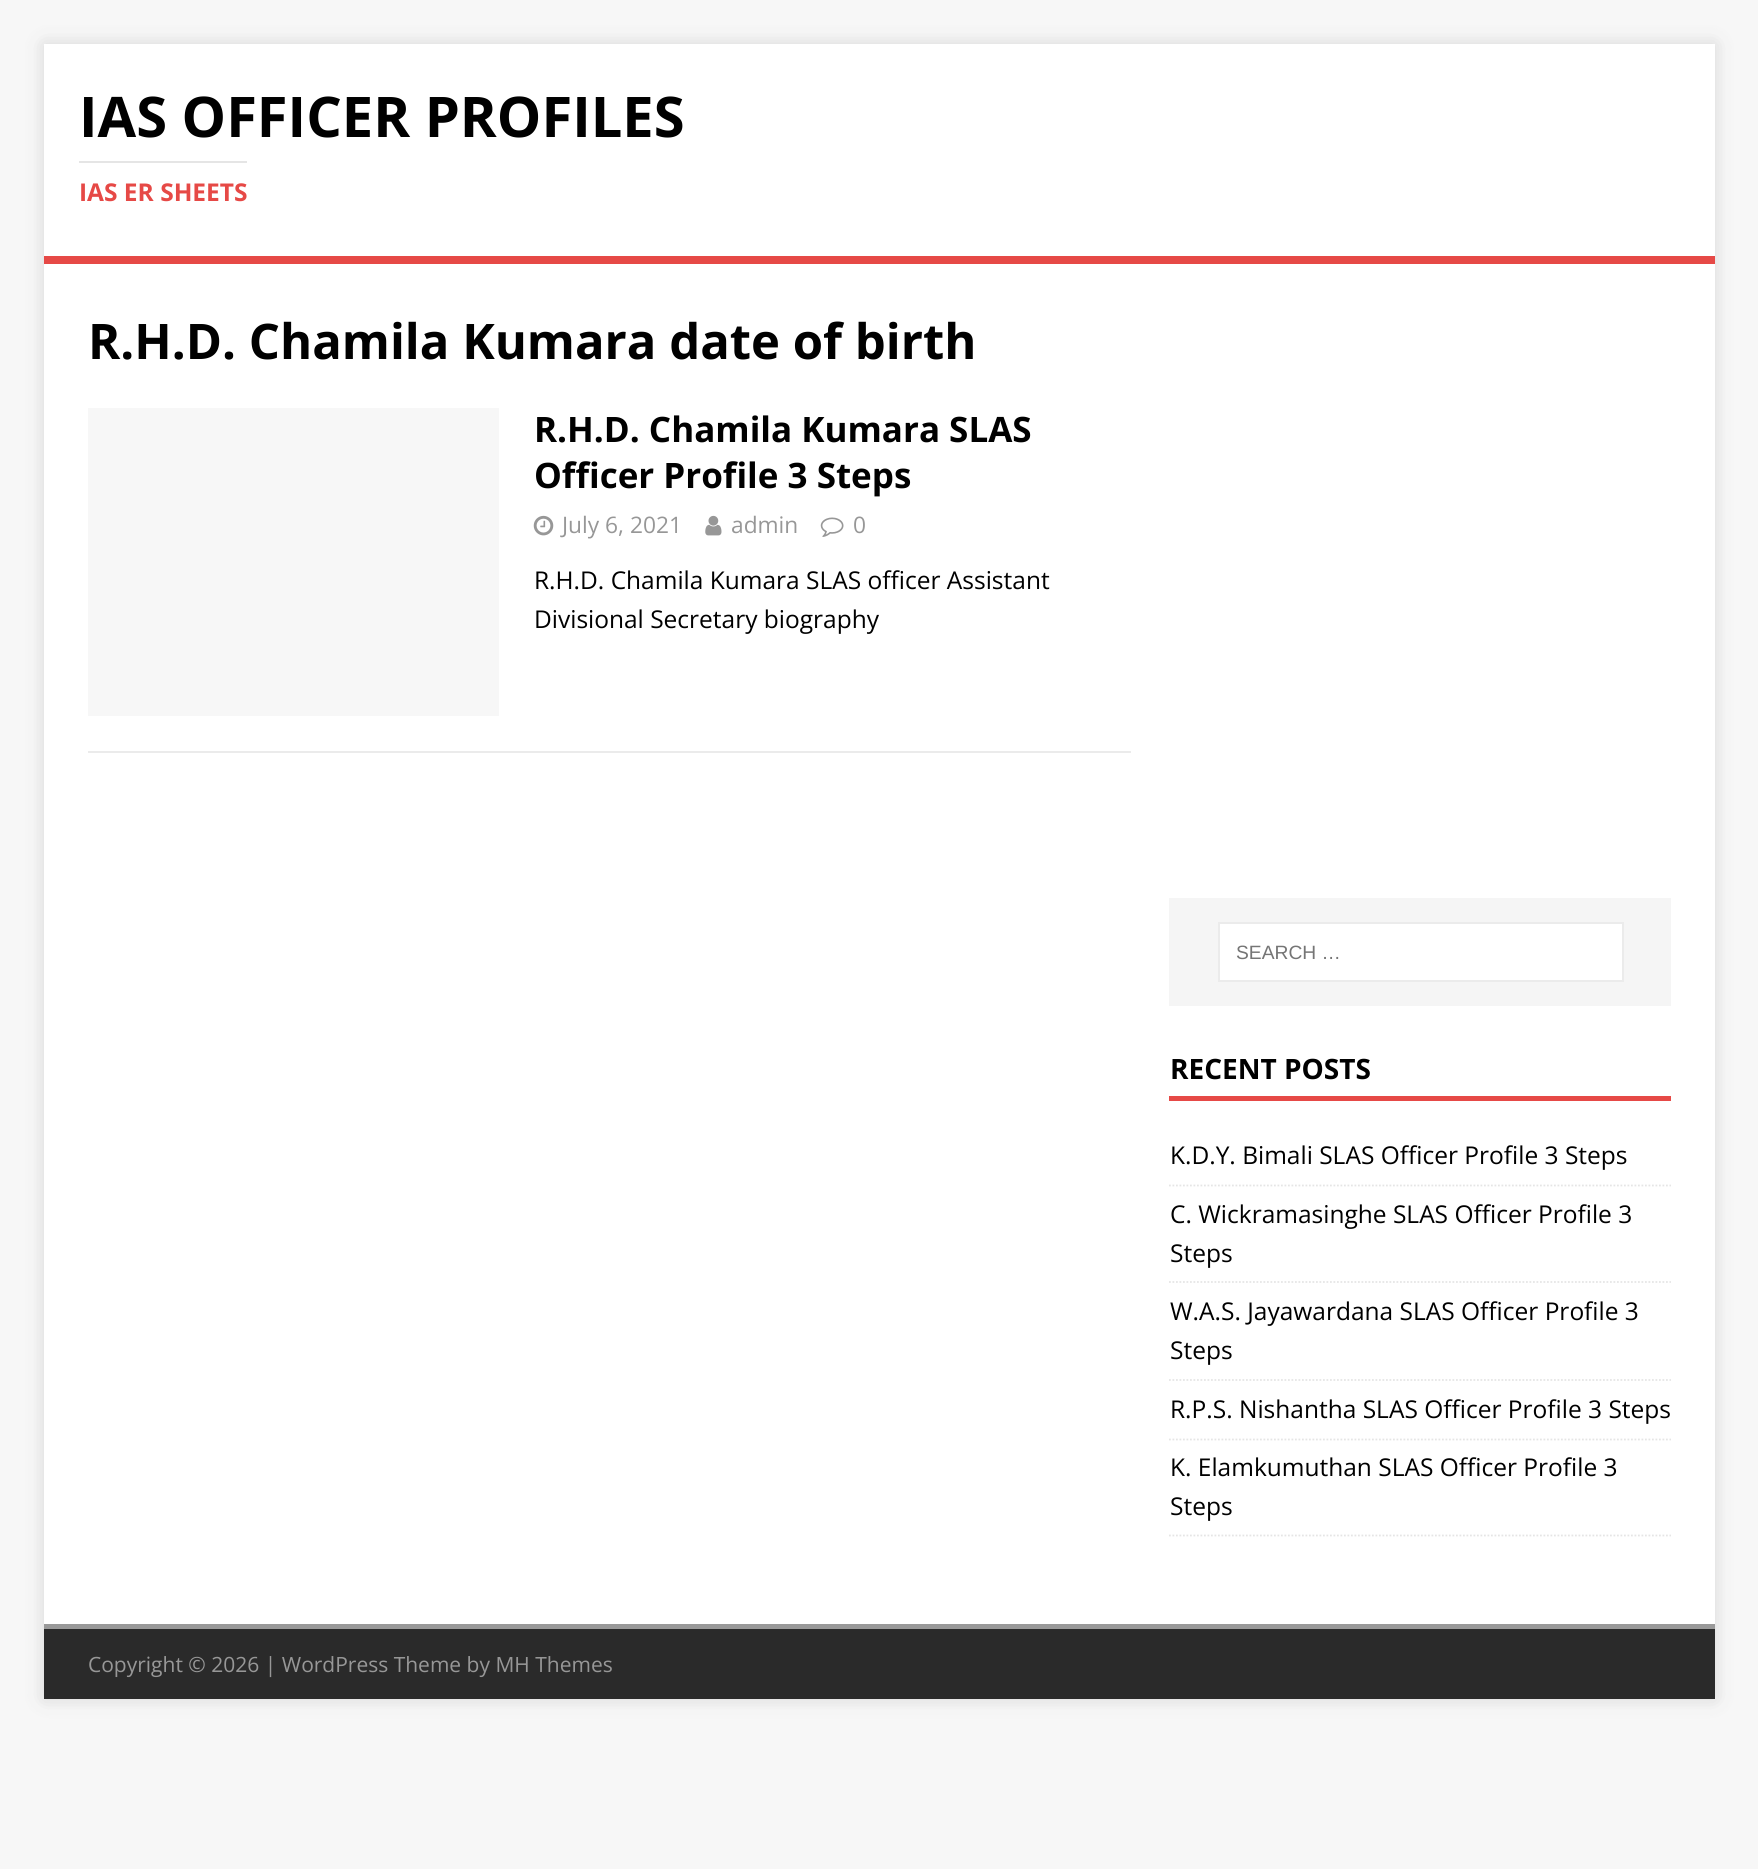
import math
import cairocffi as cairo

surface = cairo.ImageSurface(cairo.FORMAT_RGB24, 1758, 1869)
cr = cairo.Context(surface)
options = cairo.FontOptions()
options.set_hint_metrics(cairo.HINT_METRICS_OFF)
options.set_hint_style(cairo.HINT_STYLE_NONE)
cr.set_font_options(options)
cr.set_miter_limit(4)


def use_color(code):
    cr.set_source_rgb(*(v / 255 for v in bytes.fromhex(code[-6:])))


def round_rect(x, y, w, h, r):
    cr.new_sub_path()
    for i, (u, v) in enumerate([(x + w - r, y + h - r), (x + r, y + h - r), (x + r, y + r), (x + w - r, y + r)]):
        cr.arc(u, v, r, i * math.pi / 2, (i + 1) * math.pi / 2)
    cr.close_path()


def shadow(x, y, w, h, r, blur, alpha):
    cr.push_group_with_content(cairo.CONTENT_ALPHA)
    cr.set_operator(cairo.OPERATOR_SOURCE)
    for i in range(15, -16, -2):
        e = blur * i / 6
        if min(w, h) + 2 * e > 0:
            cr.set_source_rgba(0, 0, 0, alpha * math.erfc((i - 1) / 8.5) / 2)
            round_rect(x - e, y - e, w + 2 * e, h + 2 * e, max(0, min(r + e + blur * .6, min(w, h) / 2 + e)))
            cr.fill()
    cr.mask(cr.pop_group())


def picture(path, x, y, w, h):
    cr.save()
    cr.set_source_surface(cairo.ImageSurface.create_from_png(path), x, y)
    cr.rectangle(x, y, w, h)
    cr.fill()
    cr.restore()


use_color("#f7f7f7")
cr.paint()
use_color("#323232")
shadow(44, 44, 1671, 1655, 0, 9, 0.17)
use_color("#ffffff")
cr.rectangle(44, 44, 1671, 212)
cr.fill()
cr.select_font_face("Open Sans", cairo.FONT_SLANT_NORMAL, cairo.FONT_WEIGHT_BOLD)
cr.set_font_size(56)
use_color("#000000")
cr.move_to(79, 137)
cr.show_text("IAS OFFICER PROFILES")
use_color("#e5e5e5")
cr.rectangle(79, 161, 168, 2)
cr.fill()
cr.set_font_size(24.5)
use_color("#e64946")
cr.move_to(79, 201)
cr.show_text("IAS ER SHEETS")
cr.rectangle(44, 256, 1671, 8)
cr.fill()
use_color("#ffffff")
cr.rectangle(44, 264, 1671, 1360)
cr.fill()
cr.set_font_size(49)
use_color("#000000")
cr.move_to(88, 359)
cr.show_text("R.H.D. Chamila Kumara date of birth")
use_color("#ebebeb")
cr.rectangle(88, 751, 1043, 2)
cr.fill()
use_color("#f7f7f7")
cr.rectangle(88, 408, 411, 308)
cr.fill()
cr.set_font_size(35)
use_color("#000000")
cr.move_to(534, 442)
cr.show_text("R.H.D. Chamila Kumara SLAS")
cr.move_to(534, 488)
cr.show_text("Officer Profile 3 Steps")
picture("img1.png", 533, 515, 21, 21)
cr.select_font_face("Open Sans")
cr.set_font_size(22.75)
use_color("#979797")
cr.move_to(562, 533)
cr.show_text("July 6, 2021")
picture("img2.png", 705, 515, 17, 21)
cr.move_to(731, 533)
cr.show_text("admin")
picture("img3.png", 820, 517, 24, 20)
cr.move_to(853, 533)
cr.show_text("0")
cr.set_font_size(24.5)
use_color("#000000")
cr.move_to(534, 589)
cr.show_text("R.H.D. Chamila Kumara SLAS officer Assistant")
cr.move_to(534, 628)
cr.show_text("Divisional Secretary biography")
use_color("#f5f5f5")
cr.rectangle(1169, 898, 502, 108)
cr.fill()
use_color("#ffffff")
cr.rectangle(1219, 923, 404, 58)
cr.fill_preserve()
use_color("#ebebeb")
cr.stroke()
cr.select_font_face("Liberation Sans")
cr.set_font_size(19.25)
use_color("#757575")
cr.move_to(1236, 959)
cr.show_text("SEARCH …")
use_color("#e64946")
cr.rectangle(1169, 1096, 502, 5)
cr.fill()
cr.select_font_face("Open Sans", cairo.FONT_SLANT_NORMAL, cairo.FONT_WEIGHT_BOLD)
cr.set_font_size(28)
use_color("#000000")
cr.move_to(1170, 1079)
cr.show_text("RECENT POSTS")
cr.new_path()
cr.move_to(1169, 1185.5)
cr.line_to(1671, 1185.5)
use_color("#e5e5e5")
cr.set_line_width(1.8)
cr.set_dash([1.75, 1.75])
cr.stroke()
cr.select_font_face("Open Sans")
cr.set_font_size(24.5)
use_color("#000000")
cr.move_to(1170, 1164)
cr.show_text("K.D.Y. Bimali SLAS Officer Profile 3 Steps")
cr.new_path()
cr.move_to(1169, 1282)
cr.line_to(1671, 1282)
use_color("#e5e5e5")
cr.stroke()
use_color("#000000")
cr.move_to(1170, 1223)
cr.show_text("C. Wickramasinghe SLAS Officer Profile 3")
cr.move_to(1170, 1262)
cr.show_text("Steps")
cr.new_path()
cr.move_to(1169, 1380)
cr.line_to(1671, 1380)
use_color("#e5e5e5")
cr.stroke()
use_color("#000000")
cr.move_to(1170, 1320)
cr.show_text("W.A.S. Jayawardana SLAS Officer Profile 3")
cr.move_to(1170, 1359)
cr.show_text("Steps")
cr.new_path()
cr.move_to(1169, 1439.5)
cr.line_to(1671, 1439.5)
use_color("#e5e5e5")
cr.stroke()
use_color("#000000")
cr.move_to(1170, 1418)
cr.show_text("R.P.S. Nishantha SLAS Officer Profile 3 Steps")
cr.new_path()
cr.move_to(1169, 1535.5)
cr.line_to(1671, 1535.5)
use_color("#e5e5e5")
cr.stroke()
use_color("#000000")
cr.move_to(1170, 1476)
cr.show_text("K. Elamkumuthan SLAS Officer Profile 3")
cr.move_to(1170, 1515)
cr.show_text("Steps")
use_color("#2a2a2a")
cr.rectangle(44, 1629, 1671, 70)
cr.fill()
use_color("#999999")
cr.rectangle(44, 1624, 1671, 5)
cr.fill()
cr.set_font_size(21)
use_color("#979797")
cr.move_to(88, 1672)
cr.show_text("Copyright © 2026 | WordPress Theme by MH Themes")
surface.write_to_png("result.png")
